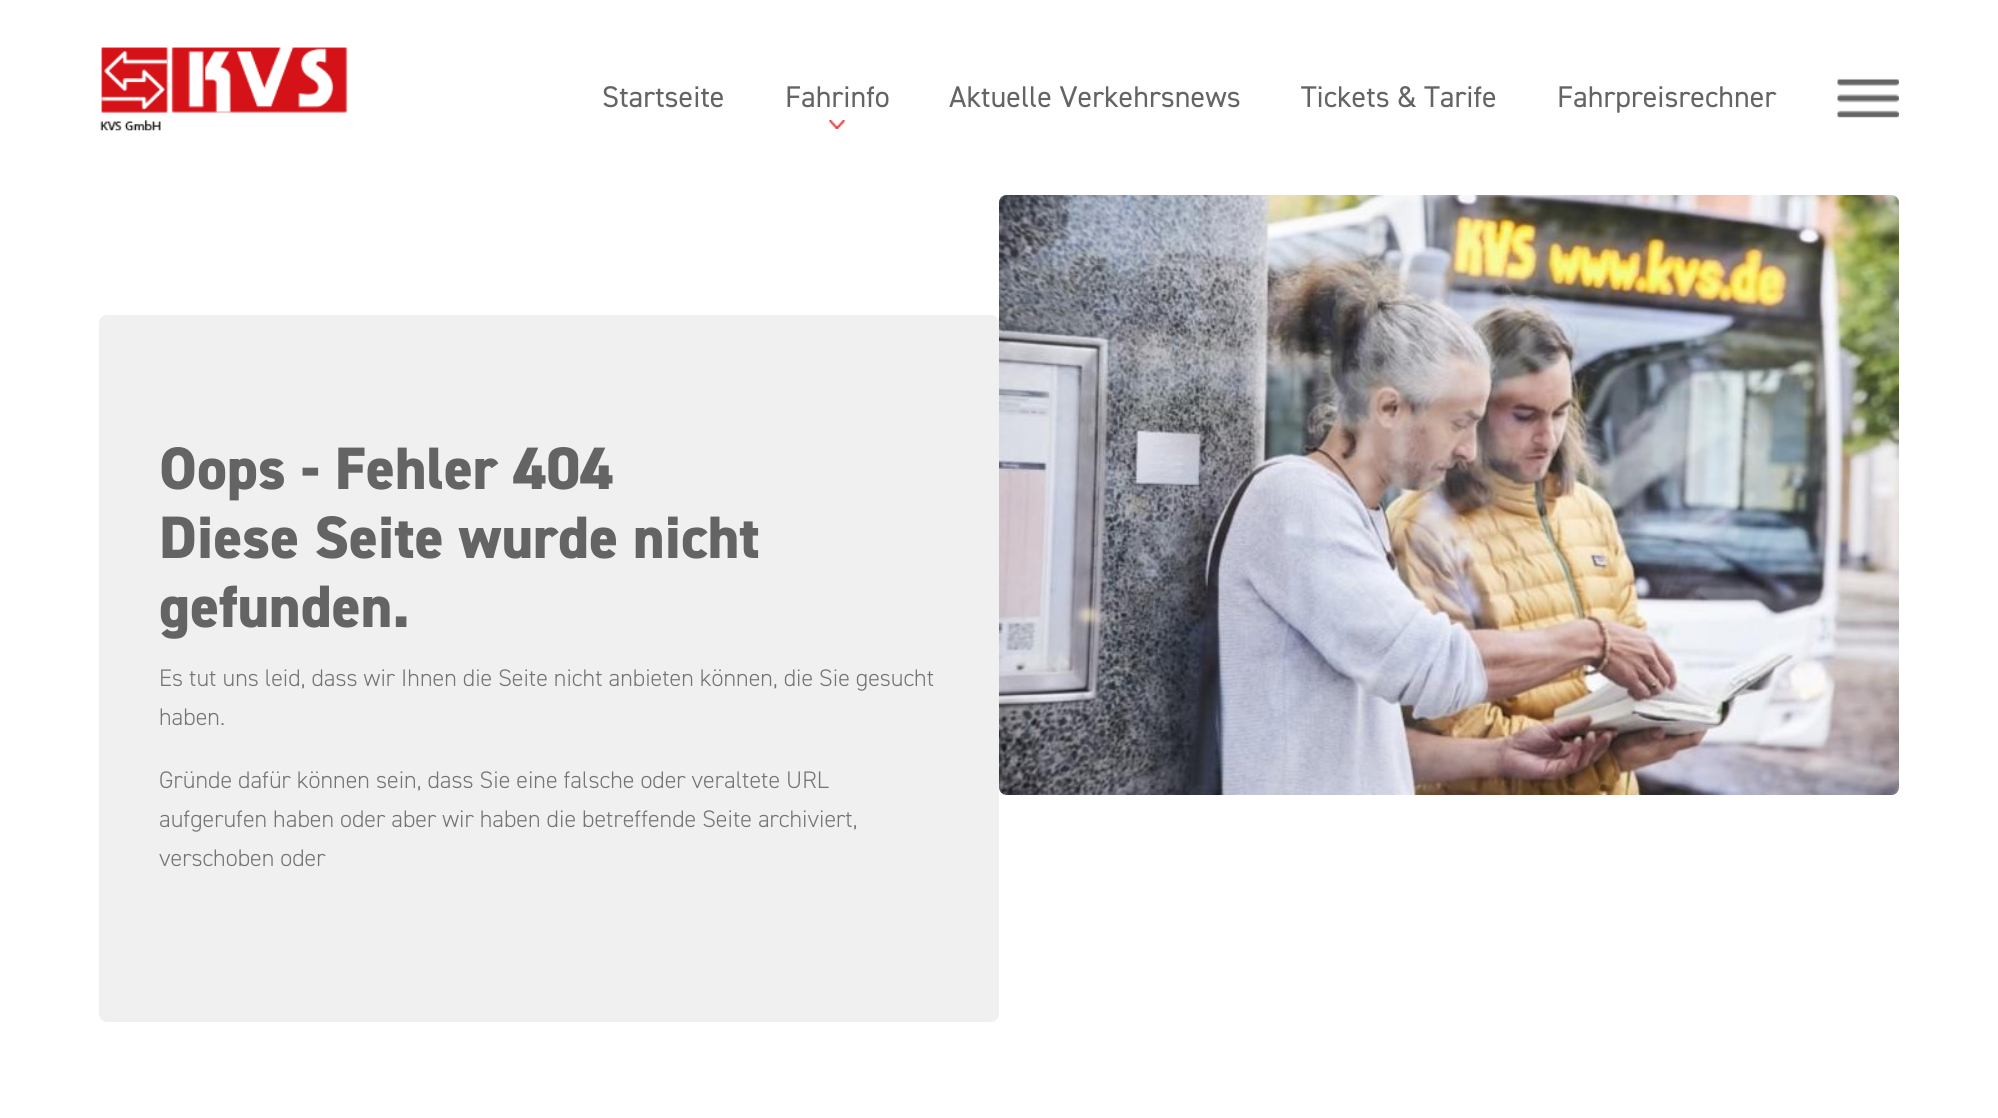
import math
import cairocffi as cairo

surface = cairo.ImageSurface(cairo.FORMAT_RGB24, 1998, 1118)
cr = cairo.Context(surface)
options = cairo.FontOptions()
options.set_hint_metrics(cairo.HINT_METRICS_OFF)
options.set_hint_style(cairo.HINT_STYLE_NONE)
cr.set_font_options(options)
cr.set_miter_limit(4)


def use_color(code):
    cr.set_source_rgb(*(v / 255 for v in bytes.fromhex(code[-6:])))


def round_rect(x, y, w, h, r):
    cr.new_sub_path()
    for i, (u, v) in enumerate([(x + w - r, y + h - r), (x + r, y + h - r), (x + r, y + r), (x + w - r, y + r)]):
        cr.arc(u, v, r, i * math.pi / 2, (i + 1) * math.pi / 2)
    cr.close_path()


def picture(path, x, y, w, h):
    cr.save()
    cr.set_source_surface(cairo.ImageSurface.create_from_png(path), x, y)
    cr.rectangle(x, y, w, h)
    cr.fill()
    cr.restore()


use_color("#ffffff")
cr.paint()
picture("img1.png", 100, 47, 248, 84)
cr.select_font_face("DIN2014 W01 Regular")
cr.set_font_size(30)
use_color("#646464")
cr.move_to(602, 107)
cr.show_text("Startseite")
picture("img2.png", 829, 120, 16, 9)
cr.move_to(785, 107)
cr.show_text("Fahrinfo")
cr.move_to(949, 107)
cr.show_text("Aktuelle Verkehrsnews")
cr.move_to(1301, 107)
cr.show_text("Tickets & Tarife")
cr.move_to(1557, 107)
cr.show_text("Fahrpreisrechner")
picture("img3.png", 1837, 78, 62, 40)
use_color("#f0f0f0")
round_rect(99, 315, 900, 707, 8)
cr.fill()
cr.select_font_face("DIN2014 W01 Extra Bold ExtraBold")
cr.set_font_size(60)
use_color("#646464")
cr.move_to(159, 489)
cr.show_text("Oops - Fehler 404")
cr.move_to(159, 558)
cr.show_text("Diese Seite wurde nicht")
cr.move_to(159, 627)
cr.show_text("gefunden.")
cr.select_font_face("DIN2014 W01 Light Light")
cr.set_font_size(24)
use_color("#747474")
cr.move_to(159, 686)
cr.show_text("Es tut uns leid, dass wir Ihnen die Seite nicht anbieten können, die Sie gesucht")
cr.move_to(159, 725)
cr.show_text("haben.")
cr.move_to(159, 788)
cr.show_text("Gründe dafür können sein, dass Sie eine falsche oder veraltete URL")
cr.move_to(159, 827)
cr.show_text("aufgerufen haben oder aber wir haben die betreffende Seite archiviert,")
cr.move_to(159, 866)
cr.show_text("verschoben oder")
picture("img4.png", 999, 195, 900, 600)
surface.write_to_png("result.png")
